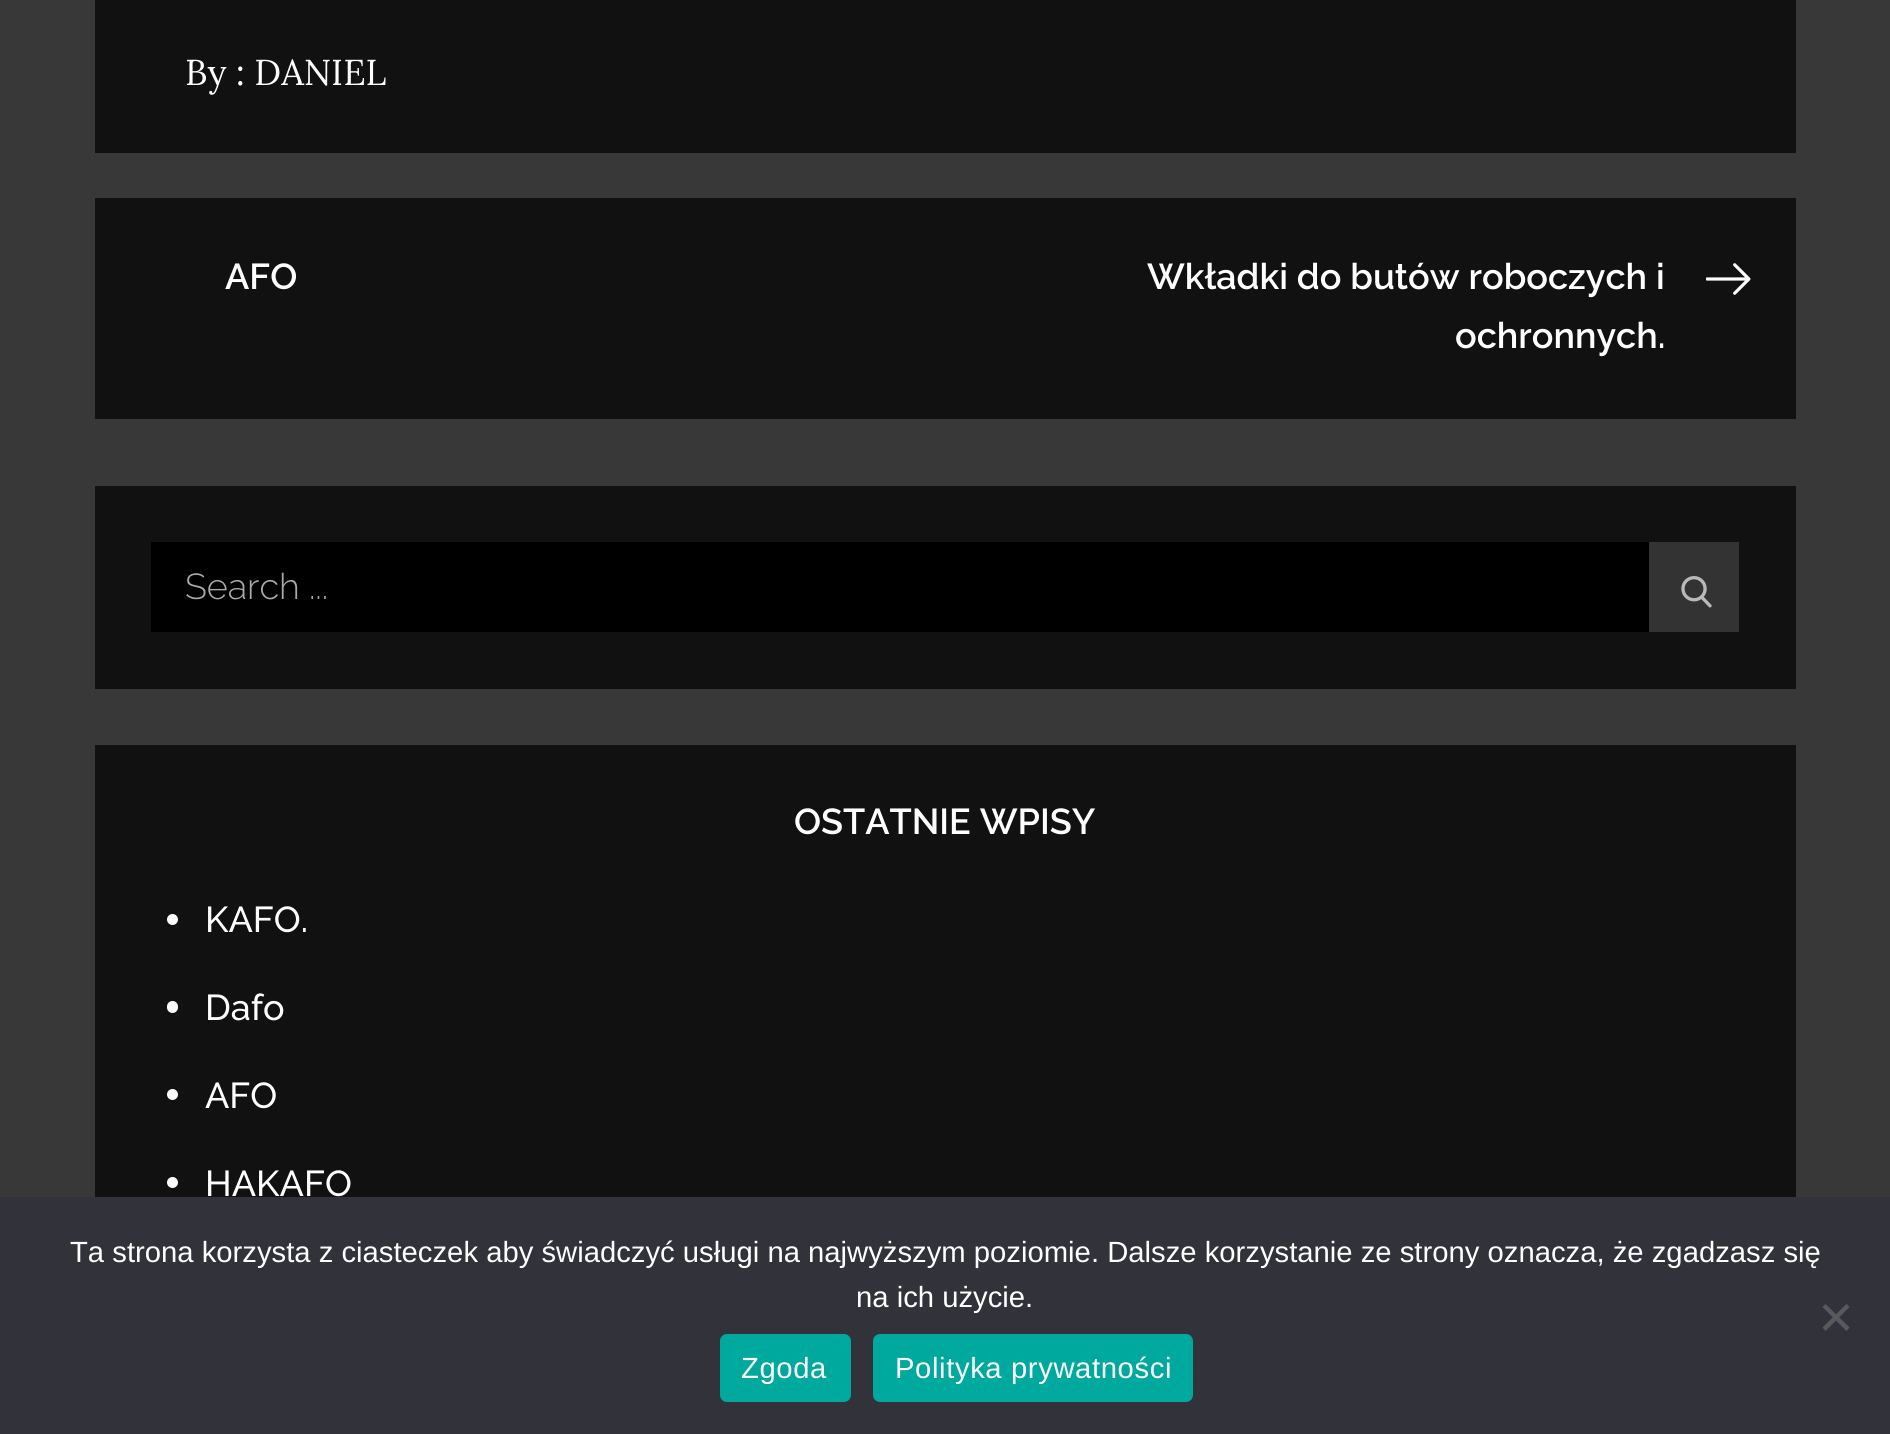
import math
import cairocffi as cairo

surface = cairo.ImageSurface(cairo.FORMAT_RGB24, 1890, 1434)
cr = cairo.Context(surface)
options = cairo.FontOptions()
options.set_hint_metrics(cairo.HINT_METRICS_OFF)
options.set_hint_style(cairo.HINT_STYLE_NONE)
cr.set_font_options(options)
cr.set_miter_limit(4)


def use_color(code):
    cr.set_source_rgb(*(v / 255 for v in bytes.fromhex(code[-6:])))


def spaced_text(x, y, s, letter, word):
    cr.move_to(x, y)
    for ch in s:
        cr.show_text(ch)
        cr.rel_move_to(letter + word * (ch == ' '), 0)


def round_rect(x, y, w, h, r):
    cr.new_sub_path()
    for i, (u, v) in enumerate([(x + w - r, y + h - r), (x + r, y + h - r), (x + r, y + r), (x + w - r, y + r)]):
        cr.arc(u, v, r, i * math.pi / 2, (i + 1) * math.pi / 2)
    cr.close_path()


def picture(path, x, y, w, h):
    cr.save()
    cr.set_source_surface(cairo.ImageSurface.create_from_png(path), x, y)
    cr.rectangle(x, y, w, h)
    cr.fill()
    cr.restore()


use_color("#383838")
cr.paint()
use_color("#111111")
cr.rectangle(95, 0, 1701, 153)
cr.fill()
cr.select_font_face("Lora")
cr.set_font_size(36)
use_color("#ffffff")
cr.move_to(185, 85)
cr.show_text("By : DANIEL")
use_color("#111111")
cr.rectangle(95, 198, 1701, 221)
cr.fill()
cr.select_font_face("Raleway SemiBold")
use_color("#ffffff")
cr.move_to(225, 289)
cr.show_text("AFO")
cr.move_to(1147, 289)
cr.show_text("Wkładki do butów roboczych i")
cr.move_to(1455, 348)
cr.show_text("ochronnych.")
picture("img1.png", 1706, 263, 45, 32)
use_color("#111111")
cr.rectangle(95, 486, 1701, 203)
cr.fill()
use_color("#000000")
cr.rectangle(151, 542, 1498, 90)
cr.fill()
cr.select_font_face("Raleway Light")
use_color("#aaaaaa")
cr.move_to(185, 599)
cr.show_text("Search ...")
use_color("#333333")
cr.rectangle(1649, 542, 90, 90)
cr.fill()
picture("img2.png", 1681, 576, 31, 32)
use_color("#111111")
cr.rectangle(95, 745, 1701, 452)
cr.fill()
cr.select_font_face("Raleway SemiBold")
use_color("#ffffff")
cr.move_to(794, 834)
cr.show_text("OSTATNIE WPISY")
cr.new_path()
cr.arc(172.5, 919.5, 5.5, 0, 2 * math.pi)
cr.fill()
cr.select_font_face("Raleway Medium")
cr.move_to(205, 932)
cr.show_text("KAFO.")
round_rect(167, 1001, 11, 12, 5.5)
cr.fill()
cr.move_to(205, 1020)
cr.show_text("Dafo")
cr.new_path()
cr.arc(172.5, 1094.5, 5.5, 0, 2 * math.pi)
cr.fill()
cr.move_to(205, 1108)
cr.show_text("AFO")
cr.new_path()
cr.arc(172.5, 1182.5, 5.5, 0, 2 * math.pi)
cr.fill()
cr.move_to(205, 1196)
cr.show_text("HAKAFO")
use_color("#32323a")
cr.rectangle(0, 1197, 1890, 237)
cr.fill()
cr.select_font_face("Liberation Sans")
cr.set_font_size(29.25)
use_color("#ffffff")
cr.move_to(70, 1262)
cr.show_text("Ta strona korzysta z ciasteczek aby świadczyć usługi na najwyższym poziomie. Dalsze korzystanie ze strony oznacza, że zgadzasz się")
cr.move_to(856, 1307)
cr.show_text("na ich użycie.")
use_color("#59595d")
cr.new_path()
cr.move_to(1846.5, 1304)
cr.line_to(1849.5, 1307)
cr.line_to(1825.5, 1331)
cr.line_to(1822.5, 1327.5)
cr.close_path()
cr.fill()
cr.new_path()
cr.move_to(1822.5, 1307)
cr.line_to(1825.5, 1304)
cr.line_to(1849.5, 1327.5)
cr.line_to(1846.5, 1331)
cr.close_path()
cr.fill()
use_color("#00a99d")
round_rect(720, 1334, 131, 68, 7)
cr.fill()
use_color("#ffffff")
spaced_text(741, 1378, "Zgoda", 0.6, 0)
use_color("#00a99d")
round_rect(873, 1334, 320, 68, 7)
cr.fill()
use_color("#ffffff")
spaced_text(895, 1378, "Polityka prywatności", 0.6, 0)
surface.write_to_png("result.png")
